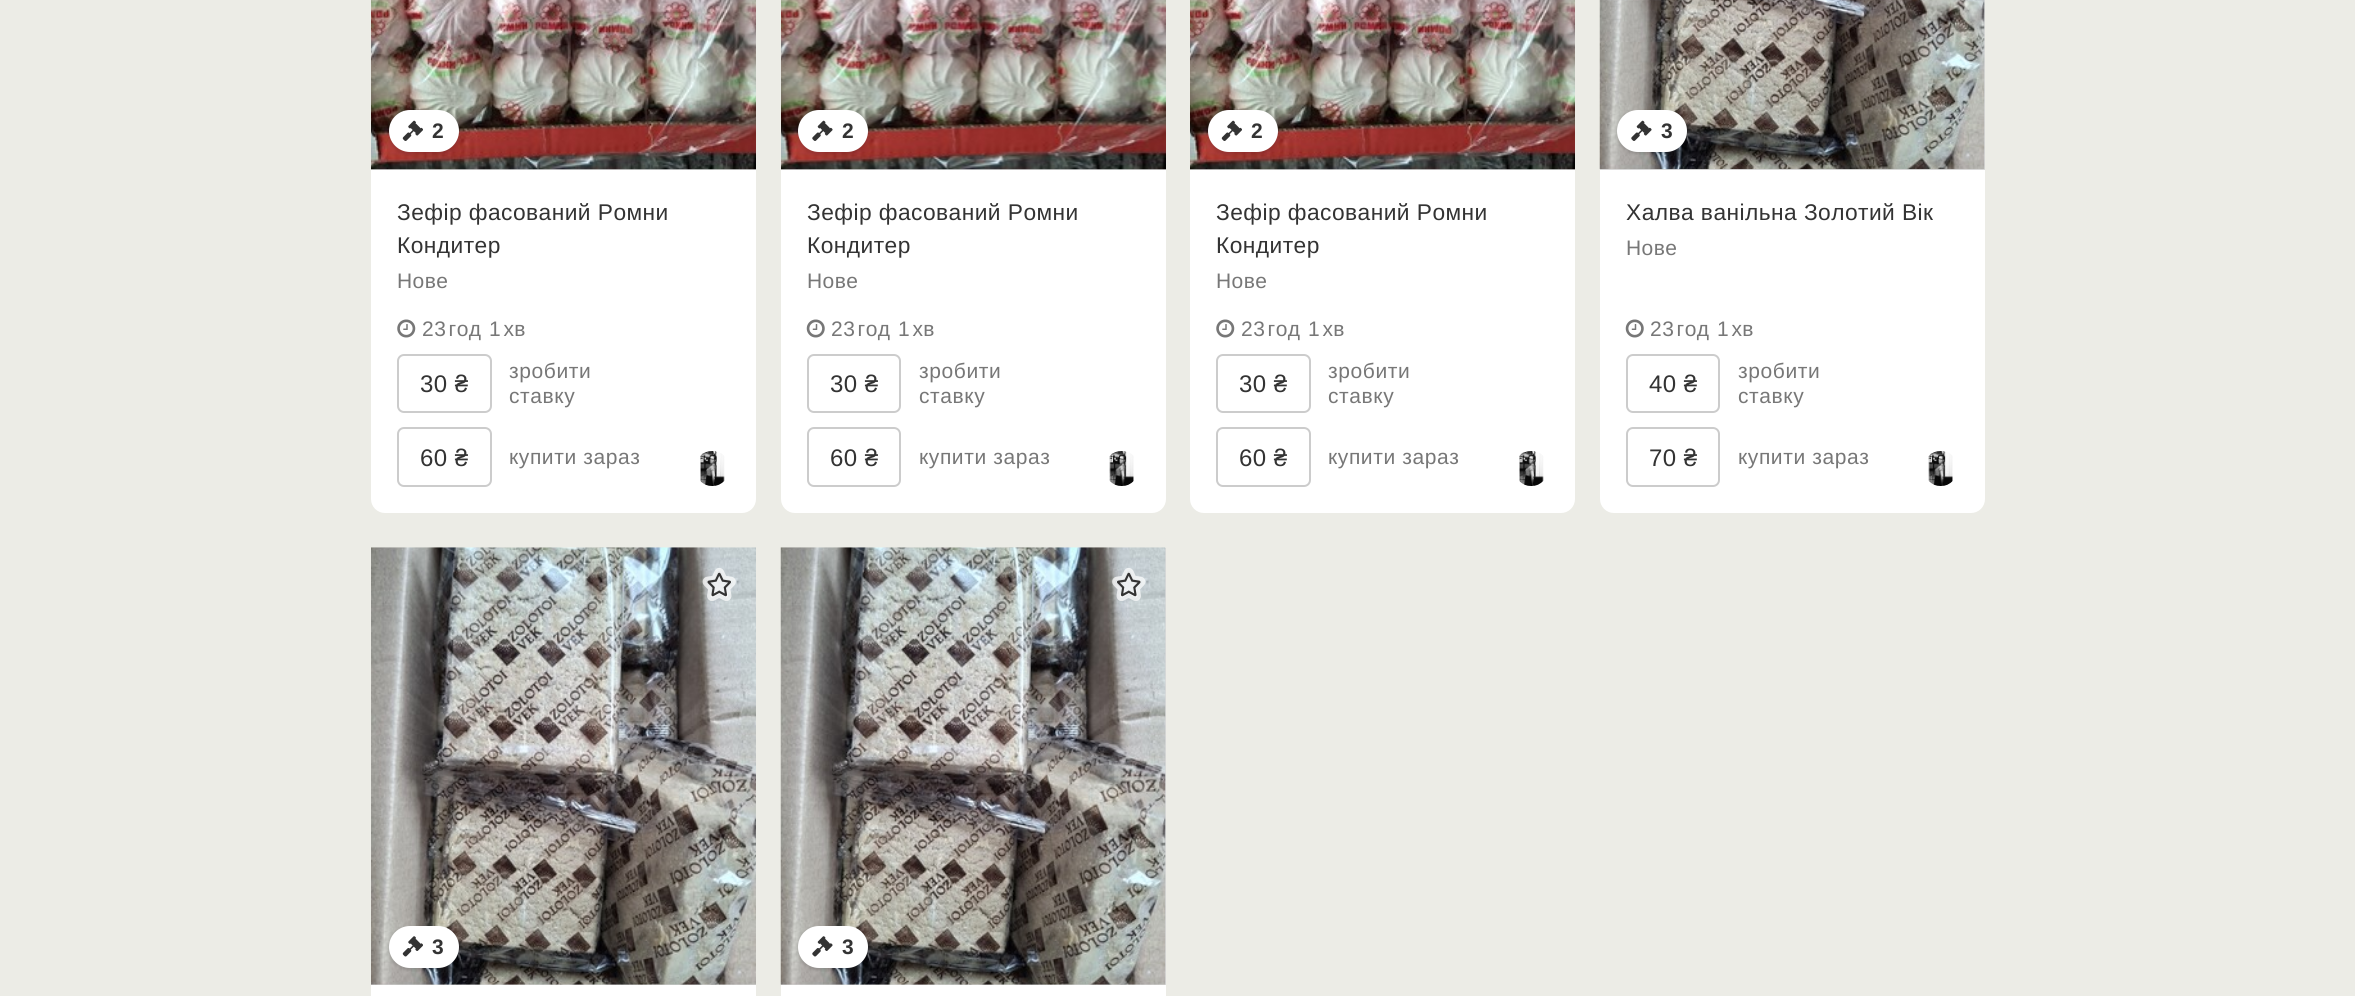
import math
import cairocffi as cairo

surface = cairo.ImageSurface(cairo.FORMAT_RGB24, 2355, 996)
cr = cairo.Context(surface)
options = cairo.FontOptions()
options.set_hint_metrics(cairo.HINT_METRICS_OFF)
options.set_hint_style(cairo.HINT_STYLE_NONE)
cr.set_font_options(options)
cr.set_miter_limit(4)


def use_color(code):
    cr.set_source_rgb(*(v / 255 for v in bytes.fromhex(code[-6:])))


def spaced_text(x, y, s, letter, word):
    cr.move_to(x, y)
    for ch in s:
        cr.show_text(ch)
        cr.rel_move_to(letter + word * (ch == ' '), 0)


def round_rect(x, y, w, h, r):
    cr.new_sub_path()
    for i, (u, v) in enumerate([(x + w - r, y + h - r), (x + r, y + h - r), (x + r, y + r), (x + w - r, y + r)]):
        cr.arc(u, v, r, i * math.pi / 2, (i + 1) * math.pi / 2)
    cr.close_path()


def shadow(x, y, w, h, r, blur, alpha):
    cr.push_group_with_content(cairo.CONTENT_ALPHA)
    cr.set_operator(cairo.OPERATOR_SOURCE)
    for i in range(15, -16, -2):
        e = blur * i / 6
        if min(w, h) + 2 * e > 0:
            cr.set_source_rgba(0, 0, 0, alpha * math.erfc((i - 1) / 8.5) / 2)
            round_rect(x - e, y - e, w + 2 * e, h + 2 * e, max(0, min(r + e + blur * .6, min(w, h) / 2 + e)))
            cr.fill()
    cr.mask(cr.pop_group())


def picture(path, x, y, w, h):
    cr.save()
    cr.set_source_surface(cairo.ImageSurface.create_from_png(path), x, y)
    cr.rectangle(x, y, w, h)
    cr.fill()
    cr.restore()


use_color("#ecece6")
cr.paint()
use_color("#ffffff")
round_rect(371, -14, 385, 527, 14)
cr.fill()
use_color("#dadada")
cr.rectangle(371, 169, 385, 1)
cr.fill()
picture("img1.png", 371, 0, 385, 170)
use_color("#000000")
shadow(389, 112, 70, 42, 21, 2, 0.15)
use_color("#ffffff")
round_rect(389, 110, 70, 42, 21)
cr.fill()
picture("img2.png", 402, 120, 21, 21)
cr.select_font_face("Liberation Sans", cairo.FONT_SLANT_NORMAL, cairo.FONT_WEIGHT_BOLD)
cr.set_font_size(21)
use_color("#333333")
cr.move_to(432, 138)
cr.show_text("2")
cr.select_font_face("Liberation Sans")
cr.set_font_size(22.75)
spaced_text(397, 220, "Зефір фасований Ромни", 0.45, 0)
spaced_text(397, 253, "Кондитер", 0.45, 0)
cr.set_font_size(21)
use_color("#777777")
spaced_text(397, 288, "Нове", 0.45, 0)
picture("img3.png", 397, 319, 19, 19)
spaced_text(422, 336, "23 год", 0.45, -4)
spaced_text(489, 336, "1 хв", 0.45, -4)
round_rect(398, 355, 93, 57, 6)
use_color("#cccccc")
cr.stroke()
cr.set_font_size(24)
use_color("#333333")
spaced_text(420, 392, "30 ₴", 0.5, 0)
cr.set_font_size(21)
use_color("#777777")
spaced_text(509, 378, "зробити", 0.6, 0)
spaced_text(509, 403, "ставку", 0.6, 0)
round_rect(398, 428, 93, 58, 6)
use_color("#cccccc")
cr.stroke()
cr.set_font_size(24)
use_color("#333333")
spaced_text(420, 466, "60 ₴", 0.5, 0)
cr.set_font_size(21)
use_color("#777777")
spaced_text(509, 464, "купити зараз", 0.6, 0)
picture("img4.png", 700, 451, 25, 35)
use_color("#ffffff")
round_rect(781, -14, 385, 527, 14)
cr.fill()
use_color("#dadada")
cr.rectangle(781, 169, 385, 1)
cr.fill()
picture("img5.png", 781, 0, 385, 170)
use_color("#000000")
shadow(798, 112, 70, 42, 21, 2, 0.15)
use_color("#ffffff")
round_rect(798, 110, 70, 42, 21)
cr.fill()
picture("img6.png", 812, 120, 21, 21)
cr.select_font_face("Liberation Sans", cairo.FONT_SLANT_NORMAL, cairo.FONT_WEIGHT_BOLD)
use_color("#333333")
cr.move_to(842, 138)
cr.show_text("2")
cr.select_font_face("Liberation Sans")
cr.set_font_size(22.75)
spaced_text(807, 220, "Зефір фасований Ромни", 0.45, 0)
spaced_text(807, 253, "Кондитер", 0.45, 0)
cr.set_font_size(21)
use_color("#777777")
spaced_text(807, 288, "Нове", 0.45, 0)
picture("img7.png", 806, 319, 19, 19)
spaced_text(831, 336, "23 год", 0.45, -4)
spaced_text(898, 336, "1 хв", 0.45, -4)
round_rect(808, 355, 92, 57, 6)
use_color("#cccccc")
cr.stroke()
cr.set_font_size(24)
use_color("#333333")
spaced_text(830, 392, "30 ₴", 0.5, 0)
cr.set_font_size(21)
use_color("#777777")
spaced_text(919, 378, "зробити", 0.6, 0)
spaced_text(919, 403, "ставку", 0.6, 0)
round_rect(808, 428, 92, 58, 6)
use_color("#cccccc")
cr.stroke()
cr.set_font_size(24)
use_color("#333333")
spaced_text(830, 466, "60 ₴", 0.5, 0)
cr.set_font_size(21)
use_color("#777777")
spaced_text(919, 464, "купити зараз", 0.6, 0)
picture("img8.png", 1109, 451, 25, 35)
use_color("#ffffff")
round_rect(1190, -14, 385, 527, 14)
cr.fill()
use_color("#dadada")
cr.rectangle(1190, 169, 385, 1)
cr.fill()
picture("img1.png", 1190, 0, 385, 170)
use_color("#000000")
shadow(1208, 112, 70, 42, 21, 2, 0.15)
use_color("#ffffff")
round_rect(1208, 110, 70, 42, 21)
cr.fill()
picture("img2.png", 1221, 120, 21, 21)
cr.select_font_face("Liberation Sans", cairo.FONT_SLANT_NORMAL, cairo.FONT_WEIGHT_BOLD)
use_color("#333333")
cr.move_to(1251, 138)
cr.show_text("2")
cr.select_font_face("Liberation Sans")
cr.set_font_size(22.75)
spaced_text(1216, 220, "Зефір фасований Ромни", 0.45, 0)
spaced_text(1216, 253, "Кондитер", 0.45, 0)
cr.set_font_size(21)
use_color("#777777")
spaced_text(1216, 288, "Нове", 0.45, 0)
picture("img3.png", 1216, 319, 19, 19)
spaced_text(1241, 336, "23 год", 0.45, -4)
spaced_text(1308, 336, "1 хв", 0.45, -4)
round_rect(1217, 355, 93, 57, 6)
use_color("#cccccc")
cr.stroke()
cr.set_font_size(24)
use_color("#333333")
spaced_text(1239, 392, "30 ₴", 0.5, 0)
cr.set_font_size(21)
use_color("#777777")
spaced_text(1328, 378, "зробити", 0.6, 0)
spaced_text(1328, 403, "ставку", 0.6, 0)
round_rect(1217, 428, 93, 58, 6)
use_color("#cccccc")
cr.stroke()
cr.set_font_size(24)
use_color("#333333")
spaced_text(1239, 466, "60 ₴", 0.5, 0)
cr.set_font_size(21)
use_color("#777777")
spaced_text(1328, 464, "купити зараз", 0.6, 0)
picture("img9.png", 1519, 451, 25, 35)
use_color("#ffffff")
round_rect(1600, -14, 385, 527, 14)
cr.fill()
use_color("#dadada")
cr.rectangle(1600, 0, 385, 170)
cr.fill()
picture("img10.png", 1599, 0, 386, 170)
use_color("#000000")
shadow(1617, 112, 70, 42, 21, 2, 0.15)
use_color("#ffffff")
round_rect(1617, 110, 70, 42, 21)
cr.fill()
picture("img6.png", 1631, 120, 21, 21)
cr.select_font_face("Liberation Sans", cairo.FONT_SLANT_NORMAL, cairo.FONT_WEIGHT_BOLD)
use_color("#333333")
cr.move_to(1661, 138)
cr.show_text("3")
cr.select_font_face("Liberation Sans")
cr.set_font_size(22.75)
spaced_text(1626, 220, "Халва ванільна Золотий Вік", 0.45, 0)
cr.set_font_size(21)
use_color("#777777")
spaced_text(1626, 255, "Нове", 0.45, 0)
picture("img7.png", 1625, 319, 19, 19)
spaced_text(1650, 336, "23 год", 0.45, -4)
spaced_text(1717, 336, "1 хв", 0.45, -4)
round_rect(1627, 355, 92, 57, 6)
use_color("#cccccc")
cr.stroke()
cr.set_font_size(24)
use_color("#333333")
spaced_text(1649, 392, "40 ₴", 0.5, 0)
cr.set_font_size(21)
use_color("#777777")
spaced_text(1738, 378, "зробити", 0.6, 0)
spaced_text(1738, 403, "ставку", 0.6, 0)
round_rect(1627, 428, 92, 58, 6)
use_color("#cccccc")
cr.stroke()
cr.set_font_size(24)
use_color("#333333")
spaced_text(1649, 466, "70 ₴", 0.5, 0)
cr.set_font_size(21)
use_color("#777777")
spaced_text(1738, 464, "купити зараз", 0.6, 0)
picture("img11.png", 1928, 451, 25, 35)
use_color("#ffffff")
cr.rectangle(371, 985, 385, 11)
cr.fill()
use_color("#dadada")
cr.rectangle(371, 984, 385, 1)
cr.fill()
picture("img12.png", 371, 547, 385, 438)
picture("img13.png", 702, 568, 34, 33)
use_color("#000000")
shadow(389, 928, 70, 42, 21, 2, 0.15)
use_color("#ffffff")
round_rect(389, 926, 70, 42, 21)
cr.fill()
picture("img14.png", 402, 936, 21, 21)
cr.select_font_face("Liberation Sans", cairo.FONT_SLANT_NORMAL, cairo.FONT_WEIGHT_BOLD)
use_color("#333333")
cr.move_to(432, 954)
cr.show_text("3")
use_color("#ffffff")
cr.rectangle(781, 985, 385, 11)
cr.fill()
use_color("#dadada")
cr.rectangle(781, 548, 385, 437)
cr.fill()
picture("img15.png", 780, 547, 386, 438)
picture("img16.png", 1112, 568, 34, 33)
use_color("#000000")
shadow(798, 928, 70, 42, 21, 2, 0.15)
use_color("#ffffff")
round_rect(798, 926, 70, 42, 21)
cr.fill()
picture("img17.png", 812, 936, 21, 21)
use_color("#333333")
cr.move_to(842, 954)
cr.show_text("3")
surface.write_to_png("result.png")
